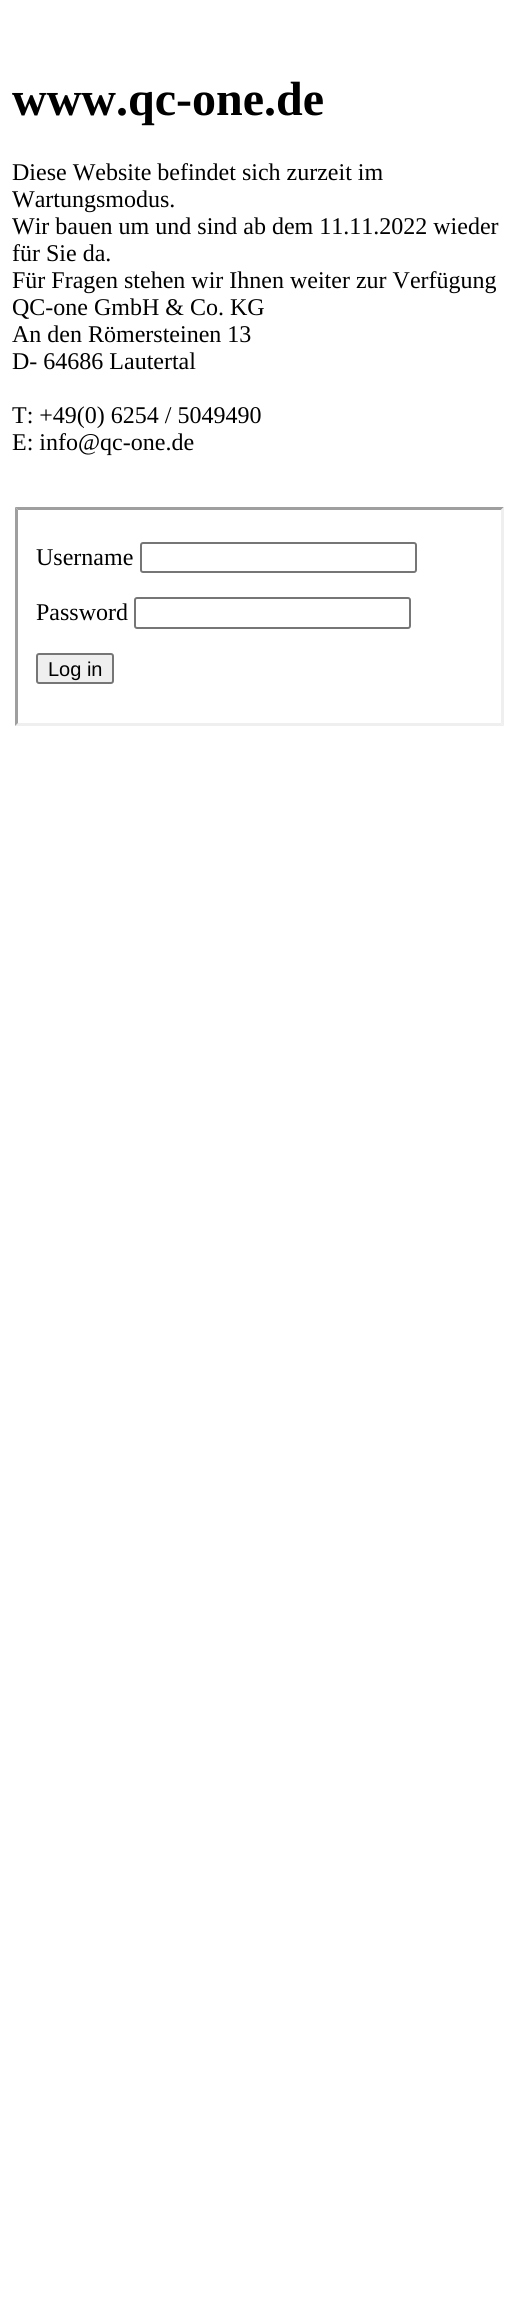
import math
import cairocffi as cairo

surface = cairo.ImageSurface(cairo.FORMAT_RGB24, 518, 2306)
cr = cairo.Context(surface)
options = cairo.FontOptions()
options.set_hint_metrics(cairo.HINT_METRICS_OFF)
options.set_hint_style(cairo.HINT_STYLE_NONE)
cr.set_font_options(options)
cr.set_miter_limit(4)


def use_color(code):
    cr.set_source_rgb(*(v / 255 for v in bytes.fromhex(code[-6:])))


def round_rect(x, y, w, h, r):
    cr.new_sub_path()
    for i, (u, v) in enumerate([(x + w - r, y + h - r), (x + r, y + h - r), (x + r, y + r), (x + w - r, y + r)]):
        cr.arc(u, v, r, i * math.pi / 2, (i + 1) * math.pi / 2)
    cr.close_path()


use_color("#ffffff")
cr.paint()
cr.select_font_face("Liberation Serif", cairo.FONT_SLANT_NORMAL, cairo.FONT_WEIGHT_BOLD)
cr.set_font_size(48)
use_color("#000000")
cr.move_to(12, 115)
cr.show_text("www.qc-one.de")
cr.select_font_face("Liberation Serif")
cr.set_font_size(24)
cr.move_to(12, 180)
cr.show_text("Diese Website befindet sich zurzeit im")
cr.move_to(12, 207)
cr.show_text("Wartungsmodus.")
cr.move_to(12, 234)
cr.show_text("Wir bauen um und sind ab dem 11.11.2022 wieder")
cr.move_to(12, 261)
cr.show_text("für Sie da.")
cr.move_to(12, 288)
cr.show_text("Für Fragen stehen wir Ihnen weiter zur Verfügung")
cr.move_to(12, 315)
cr.show_text("QC-one GmbH & Co. KG")
cr.move_to(12, 342)
cr.show_text("An den Römersteinen 13")
cr.move_to(12, 369)
cr.show_text("D- 64686 Lautertal")
cr.move_to(12, 423)
cr.show_text("T: +49(0) 6254 / 5049490")
cr.move_to(12, 450)
cr.show_text("E: info@qc-one.de")
use_color("#9f9f9f")
cr.new_path()
cr.move_to(15, 507)
cr.line_to(504, 507)
cr.line_to(501, 510)
cr.line_to(18, 510)
cr.close_path()
cr.fill()
use_color("#efefef")
cr.new_path()
cr.move_to(504, 507)
cr.line_to(504, 726)
cr.line_to(501, 723)
cr.line_to(501, 510)
cr.close_path()
cr.fill()
cr.new_path()
cr.move_to(504, 726)
cr.line_to(15, 726)
cr.line_to(18, 723)
cr.line_to(501, 723)
cr.close_path()
cr.fill()
use_color("#9f9f9f")
cr.new_path()
cr.move_to(15, 726)
cr.line_to(15, 507)
cr.line_to(18, 510)
cr.line_to(18, 723)
cr.close_path()
cr.fill()
use_color("#000000")
cr.move_to(36, 565)
cr.show_text("Username")
round_rect(141, 543, 275, 29, 2)
use_color("#767676")
cr.stroke()
use_color("#000000")
cr.move_to(36, 620)
cr.show_text("Password")
round_rect(135, 598, 275, 30, 2)
use_color("#767676")
cr.stroke()
use_color("#efefef")
round_rect(37, 654, 76, 29, 2)
cr.fill_preserve()
use_color("#767676")
cr.stroke()
cr.select_font_face("Liberation Sans")
cr.set_font_size(20)
use_color("#000000")
cr.move_to(48, 676)
cr.show_text("Log in")
surface.write_to_png("result.png")
